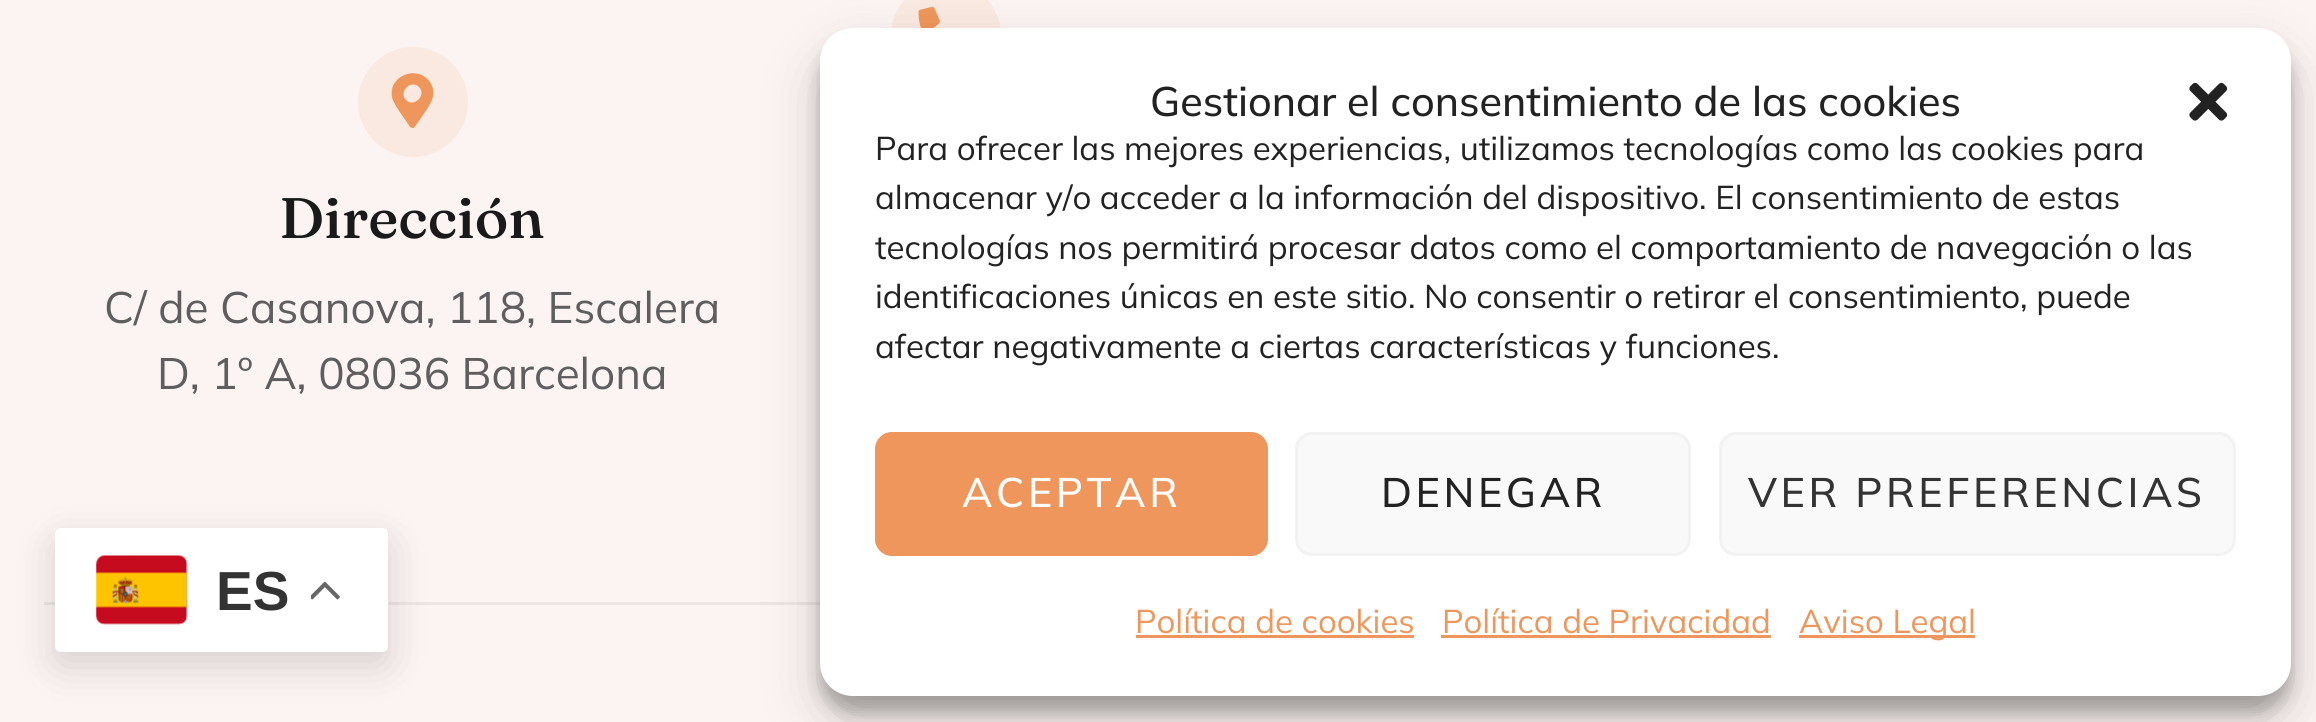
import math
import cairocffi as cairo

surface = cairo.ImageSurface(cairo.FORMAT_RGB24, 2316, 722)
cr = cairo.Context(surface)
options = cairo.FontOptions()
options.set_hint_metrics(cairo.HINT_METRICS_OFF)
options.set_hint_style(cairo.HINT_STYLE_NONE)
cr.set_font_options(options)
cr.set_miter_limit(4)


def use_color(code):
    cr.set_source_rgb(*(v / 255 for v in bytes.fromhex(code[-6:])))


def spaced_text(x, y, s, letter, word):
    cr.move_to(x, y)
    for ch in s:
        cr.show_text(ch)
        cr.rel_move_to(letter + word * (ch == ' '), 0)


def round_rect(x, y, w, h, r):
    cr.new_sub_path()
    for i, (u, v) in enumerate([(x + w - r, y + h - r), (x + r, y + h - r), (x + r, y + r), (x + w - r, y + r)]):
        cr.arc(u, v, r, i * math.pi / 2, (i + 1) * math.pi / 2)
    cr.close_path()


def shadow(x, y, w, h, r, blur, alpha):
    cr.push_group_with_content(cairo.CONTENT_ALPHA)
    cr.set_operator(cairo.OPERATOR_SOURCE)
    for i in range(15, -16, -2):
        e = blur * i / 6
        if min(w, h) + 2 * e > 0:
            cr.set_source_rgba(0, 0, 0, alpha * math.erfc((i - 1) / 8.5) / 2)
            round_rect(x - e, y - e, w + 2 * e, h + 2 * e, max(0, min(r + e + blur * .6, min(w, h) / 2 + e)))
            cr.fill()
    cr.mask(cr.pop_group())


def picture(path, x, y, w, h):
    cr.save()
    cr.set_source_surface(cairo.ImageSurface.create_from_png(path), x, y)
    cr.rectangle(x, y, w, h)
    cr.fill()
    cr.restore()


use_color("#fcf4f2")
cr.paint()
use_color("#fae9e0")
cr.arc(946, 36, 55, 0, 2 * math.pi)
cr.fill()
picture("img1.png", 918, 6, 22, 22)
cr.arc(413, 102, 55, 0, 2 * math.pi)
cr.fill()
use_color("#ee965b")
cr.new_path()
cr.move_to(410, 127)
cr.curve_to(406, 120, 394, 106, 392, 97)
cr.curve_to(388, 76, 417, 64, 430, 82)
cr.curve_to(439, 96, 428, 107, 421, 118)
cr.line_to(414, 128)
cr.curve_to(413, 128, 411, 128, 410, 127)
cr.close_path()
cr.move_to(406, 100)
cr.curve_to(414, 108, 427, 95, 419, 87)
cr.curve_to(411, 79, 398, 92, 406, 100)
cr.close_path()
cr.fill()
cr.select_font_face("Fraunces Medium")
cr.set_font_size(57)
use_color("#1a1a1a")
cr.move_to(279, 238)
cr.show_text("Dirección")
cr.select_font_face("Mulish")
cr.set_font_size(44)
use_color("#5e5e5e")
cr.move_to(104, 323)
cr.show_text("C/ de Casanova, 118, Escalera")
cr.move_to(157, 389)
cr.show_text("D, 1º A, 08036 Barcelona")
use_color("#ece5e3")
cr.rectangle(44, 602, 776, 3)
cr.fill()
use_color("#000000")
shadow(820, 44, 1471, 668, 33, 8, 0.23)
shadow(820, 55, 1471, 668, 33, 27.5, 0.19)
use_color("#ffffff")
round_rect(820, 28, 1471, 668, 33)
cr.fill()
cr.select_font_face("Mulish Medium")
cr.set_font_size(41.25)
use_color("#222222")
cr.move_to(1150, 116)
cr.show_text("Gestionar el consentimiento de las cookies")
picture("img2.png", 2189, 82, 39, 39)
cr.select_font_face("Mulish")
cr.set_font_size(33)
cr.move_to(875, 160)
cr.show_text("Para ofrecer las mejores experiencias, utilizamos tecnologías como las cookies para")
cr.move_to(875, 209)
cr.show_text("almacenar y/o acceder a la información del dispositivo. El consentimiento de estas")
cr.move_to(875, 259)
cr.show_text("tecnologías nos permitirá procesar datos como el comportamiento de navegación o las")
cr.move_to(875, 308)
cr.show_text("identificaciones únicas en este sitio. No consentir o retirar el consentimiento, puede")
cr.move_to(875, 358)
cr.show_text("afectar negativamente a ciertas características y funciones.")
use_color("#ee965b")
round_rect(876.5, 433.5, 390, 121, 15.5)
cr.fill_preserve()
cr.set_line_width(3)
cr.stroke()
cr.select_font_face("Mulish Medium")
cr.set_font_size(41.25)
use_color("#ffffff")
spaced_text(962, 507, "ACEPTAR", 3.6, 0)
use_color("#f9f9f9")
round_rect(1296.5, 433.5, 393, 121, 15.5)
cr.fill_preserve()
use_color("#f2f2f2")
cr.stroke()
use_color("#222222")
spaced_text(1381, 507, "DENEGAR", 3.6, 0)
use_color("#f9f9f9")
round_rect(1720.5, 433.5, 514, 121, 15.5)
cr.fill_preserve()
use_color("#f2f2f2")
cr.stroke()
use_color("#333333")
spaced_text(1748, 507, "VER PREFERENCIAS", 3.6, 0)
cr.select_font_face("Mulish")
cr.set_font_size(33)
use_color("#ee965b")
cr.move_to(1135, 633)
cr.show_text("Política de cookies")
cr.rectangle(1136, 635, 278, 3)
cr.fill()
cr.move_to(1442, 633)
cr.show_text("Política de Privacidad")
cr.rectangle(1441, 635, 330, 3)
cr.fill()
cr.rectangle(1799, 635, 176, 3)
cr.fill()
cr.move_to(1799, 633)
cr.show_text("Aviso Legal")
use_color("#000000")
shadow(55, 542, 333, 124, 6, 20.5, 0.15)
use_color("#ffffff")
round_rect(55, 528, 333, 124, 6)
cr.fill()
picture("img3.png", 96, 555, 92, 70)
cr.select_font_face("Liberation Sans", cairo.FONT_SLANT_NORMAL, cairo.FONT_WEIGHT_BOLD)
cr.set_font_size(55)
use_color("#333333")
cr.move_to(216, 610)
cr.show_text("ES")
picture("img4.png", 311, 581, 29, 19)
surface.write_to_png("result.png")
